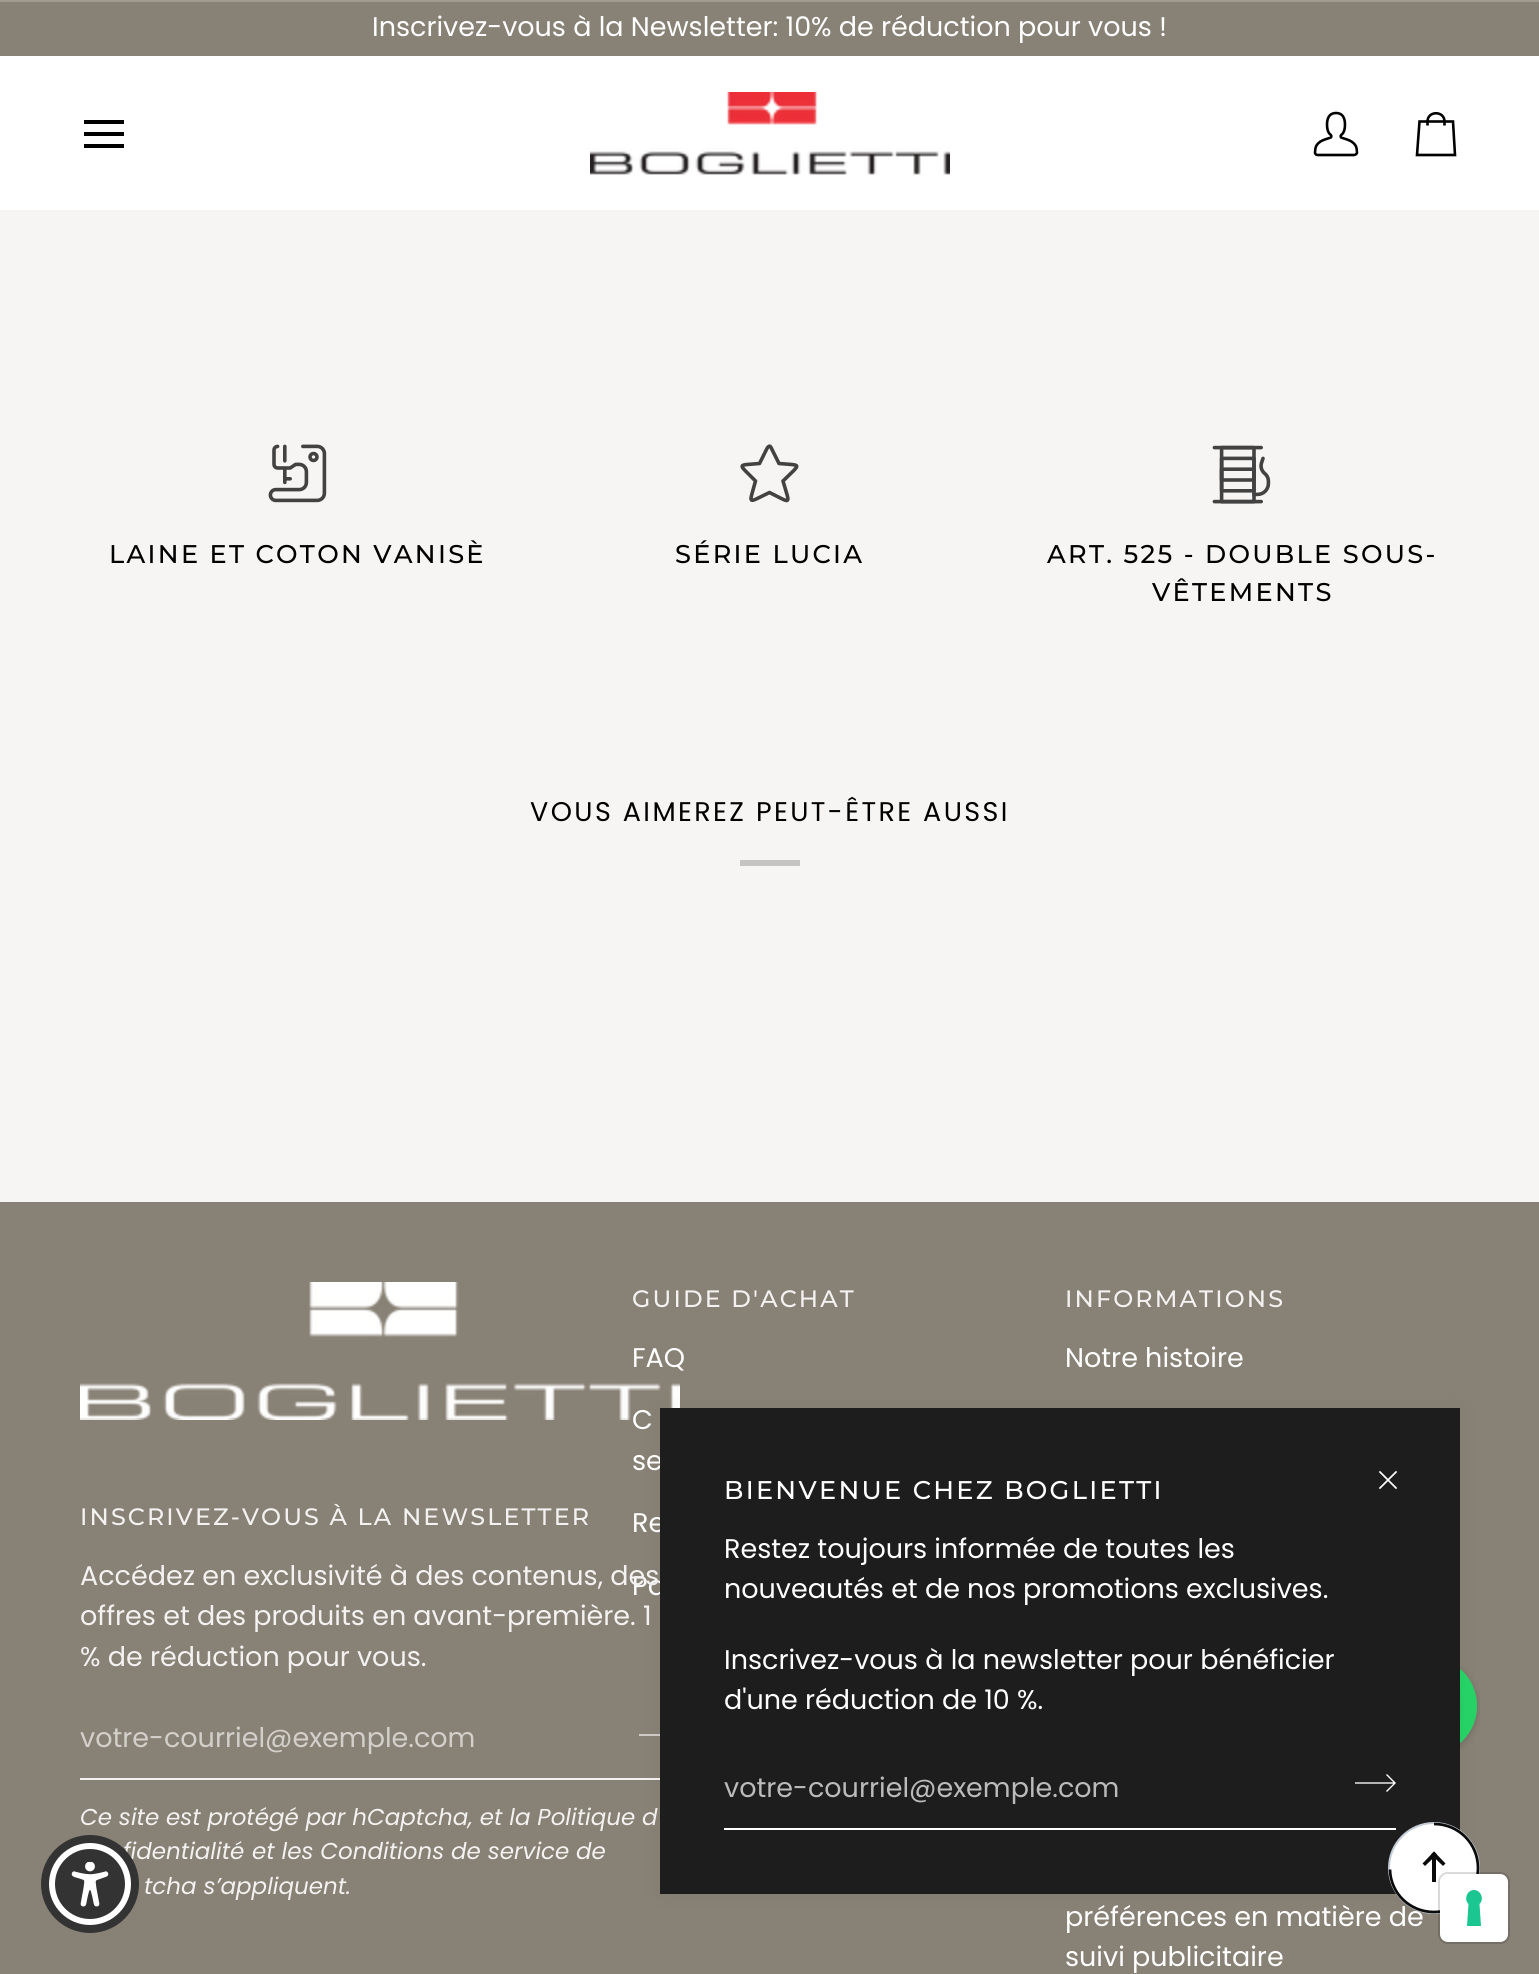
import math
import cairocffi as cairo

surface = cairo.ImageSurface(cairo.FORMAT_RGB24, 1539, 1974)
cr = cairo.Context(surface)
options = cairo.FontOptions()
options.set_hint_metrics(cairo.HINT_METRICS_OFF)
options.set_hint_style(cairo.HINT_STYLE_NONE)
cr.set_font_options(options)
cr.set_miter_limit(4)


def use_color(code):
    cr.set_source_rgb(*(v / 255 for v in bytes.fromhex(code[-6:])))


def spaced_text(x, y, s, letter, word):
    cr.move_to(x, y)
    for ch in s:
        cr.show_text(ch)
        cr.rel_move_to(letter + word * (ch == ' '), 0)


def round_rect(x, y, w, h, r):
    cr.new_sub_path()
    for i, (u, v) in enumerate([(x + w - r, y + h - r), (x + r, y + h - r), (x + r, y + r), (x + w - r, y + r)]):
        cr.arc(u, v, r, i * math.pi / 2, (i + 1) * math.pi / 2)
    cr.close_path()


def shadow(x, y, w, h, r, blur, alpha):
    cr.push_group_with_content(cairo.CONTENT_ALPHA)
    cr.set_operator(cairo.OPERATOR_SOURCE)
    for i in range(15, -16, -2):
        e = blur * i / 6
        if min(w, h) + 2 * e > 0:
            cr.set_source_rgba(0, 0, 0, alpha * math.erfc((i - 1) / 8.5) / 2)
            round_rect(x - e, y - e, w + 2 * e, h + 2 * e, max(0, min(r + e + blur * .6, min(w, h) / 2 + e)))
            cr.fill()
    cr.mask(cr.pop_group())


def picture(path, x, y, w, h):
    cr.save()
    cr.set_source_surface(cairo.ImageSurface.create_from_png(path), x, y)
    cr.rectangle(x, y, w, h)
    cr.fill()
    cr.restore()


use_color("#f7f5f4")
cr.paint()
use_color("#888175")
cr.rectangle(0, 2, 1539, 54)
cr.fill()
use_color("#a09a91")
cr.rectangle(0, 0, 1539, 2)
cr.fill()
cr.select_font_face("Poppins")
cr.set_font_size(27)
use_color("#ffffff")
cr.move_to(372, 36)
cr.show_text("Inscrivez-vous à la Newsletter: 10% de réduction pour vous !")
cr.rectangle(0, 56, 1539, 154)
cr.fill()
cr.new_path()
cr.move_to(122, 122)
cr.line_to(86, 122)
cr.move_to(122, 134)
cr.line_to(86, 134)
cr.move_to(122, 146)
cr.line_to(86, 146)
use_color("#000000")
cr.set_line_width(4)
cr.set_line_cap(cairo.LINE_CAP_SQUARE)
cr.stroke()
picture("img1.png", 590, 92, 360, 83)
picture("img2.png", 1313, 111, 46, 46)
cr.new_path()
cr.move_to(1444.5, 125.5)
cr.line_to(1444.5, 121.5)
cr.line_to(1453, 121.5)
cr.line_to(1455, 155)
cr.line_to(1417, 155)
cr.line_to(1419.5, 121.5)
cr.line_to(1427.5, 121.5)
cr.curve_to(1427.5, 110.5, 1444.5, 110.5, 1444.5, 121.5)
cr.line_to(1427.5, 121.5)
cr.line_to(1427.5, 125.5)
cr.set_line_width(2.6)
cr.set_line_cap(cairo.LINE_CAP_BUTT)
cr.stroke()
picture("img3.png", 268, 444, 59, 59)
cr.select_font_face("Montserrat Medium")
cr.set_font_size(25.6)
spaced_text(109, 563, "LAINE ET COTON VANISÈ", 2.3, 0)
cr.new_path()
cr.move_to(771, 447.5)
cr.line_to(779, 463.5)
cr.curve_to(803, 465.5, 801, 463, 783, 481)
cr.curve_to(790, 505.5, 792.5, 504, 769.5, 492.5)
cr.curve_to(746.5, 503.5, 749, 505.5, 755.5, 481)
cr.curve_to(738, 463, 736, 465.5, 759.5, 463.5)
cr.line_to(764.5, 453.5)
cr.curve_to(765, 453, 768.5, 442.5, 771, 447.5)
use_color("#424242")
cr.set_line_width(3.6)
cr.set_line_cap(cairo.LINE_CAP_ROUND)
cr.set_line_join(cairo.LINE_JOIN_ROUND)
cr.stroke()
use_color("#000000")
spaced_text(675, 563, "SÉRIE LUCIA", 2.3, 0)
picture("img4.png", 1212, 445, 59, 59)
spaced_text(1047, 563, "ART. 525 - DOUBLE SOUS-", 2.3, 0)
spaced_text(1152, 601, "VÊTEMENTS", 2.3, 0)
cr.select_font_face("Poppins")
cr.set_font_size(27)
spaced_text(530, 821, "VOUS AIMEREZ PEUT-ÊTRE AUSSI", 2.4, 0)
use_color("#c6c4c3")
cr.rectangle(740, 860, 60, 6)
cr.fill()
use_color("#888175")
cr.rectangle(0, 1202, 1539, 772)
cr.fill()
cr.select_font_face("Montserrat Medium")
cr.set_font_size(23.75)
use_color("#f3f2f1")
spaced_text(632, 1307, "GUIDE D'ACHAT", 2.15, 0)
cr.select_font_face("Poppins")
cr.set_font_size(27)
use_color("#ffffff")
cr.move_to(632, 1367)
cr.show_text("FAQ")
cr.move_to(632, 1429)
cr.show_text("C")
picture("img5.png", 80, 1282, 600, 138)
cr.select_font_face("Montserrat Medium")
cr.set_font_size(23.75)
use_color("#f3f2f1")
spaced_text(80, 1525, "INSCRIVEZ-VOUS À LA NEWSLETTER", 2.15, 0)
cr.select_font_face("Poppins")
cr.set_font_size(27)
use_color("#ffffff")
cr.move_to(632, 1595)
cr.show_text("Pa")
use_color("#f3f2f1")
cr.move_to(80, 1585)
cr.show_text("Accédez en exclusivité à des contenus, des")
cr.move_to(80, 1625)
cr.show_text("offres et des produits en avant-première. 1")
cr.move_to(80, 1666)
cr.show_text("% de réduction pour vous.")
cr.rectangle(80, 1778, 580, 2)
cr.fill()
use_color("#d3d0cc")
cr.move_to(80, 1747)
cr.show_text("votre-courriel@exemple.com")
cr.new_path()
cr.move_to(670.5, 1726.5)
cr.line_to(679, 1735)
cr.line_to(670.5, 1743.5)
cr.move_to(639, 1735)
cr.line_to(679, 1735)
use_color("#f3f2f1")
cr.set_line_width(1.4)
cr.set_line_cap(cairo.LINE_CAP_BUTT)
cr.set_line_join(cairo.LINE_JOIN_MITER)
cr.stroke()
cr.select_font_face("Poppins", cairo.FONT_SLANT_ITALIC)
cr.set_font_size(23)
cr.move_to(80, 1825)
cr.show_text("Ce site est protégé par hCaptcha, et la Politique d")
cr.move_to(123, 1859)
cr.show_text("fidentialité")
cr.move_to(252, 1859)
cr.show_text("et les Conditions de service")
cr.move_to(576, 1859)
cr.show_text("de")
cr.move_to(144, 1894)
cr.show_text("tcha s’appliquent.")
cr.select_font_face("Poppins")
cr.set_font_size(27)
use_color("#ffffff")
cr.move_to(632, 1470)
cr.show_text("se")
cr.move_to(632, 1532)
cr.show_text("Re")
cr.select_font_face("Montserrat Medium")
cr.set_font_size(23.75)
use_color("#f3f2f1")
spaced_text(1065, 1307, "INFORMATIONS", 2.15, 0)
cr.select_font_face("Poppins")
cr.set_font_size(27)
use_color("#ffffff")
cr.move_to(1065, 1367)
cr.show_text("Notre histoire")
cr.move_to(1065, 1926)
cr.show_text("préférences en matière de")
cr.move_to(1065, 1966)
cr.show_text("suivi publicitaire")
picture("img6.png", 1460, 1666, 20, 84)
use_color("#1d1d1d")
shadow(660, 1408, 800, 486, 0, 10, 0.05)
use_color("#1d1d1d")
cr.rectangle(660, 1408, 800, 486)
cr.fill()
cr.select_font_face("Montserrat Medium")
cr.set_font_size(25.6)
use_color("#ffffff")
spaced_text(724, 1499, "BIENVENUE CHEZ BOGLIETTI", 2.3, 0)
cr.new_path()
cr.move_to(1396, 1472)
cr.line_to(1380, 1488)
cr.move_to(1380, 1472)
cr.line_to(1396, 1488)
cr.set_line_width(1.7)
cr.set_line_cap(cairo.LINE_CAP_SQUARE)
cr.stroke()
cr.select_font_face("Poppins")
cr.set_font_size(27)
cr.move_to(724, 1558)
cr.show_text("Restez toujours informée de toutes les")
cr.move_to(724, 1598)
cr.show_text("nouveautés et de nos promotions exclusives.")
cr.move_to(724, 1669)
cr.show_text("Inscrivez-vous à la newsletter pour bénéficier")
cr.move_to(724, 1709)
cr.show_text("d'une réduction de 10 %.")
cr.rectangle(724, 1828, 672, 2)
cr.fill()
use_color("#bbbbbb")
cr.move_to(724, 1797)
cr.show_text("votre-courriel@exemple.com")
cr.new_path()
cr.move_to(1386.5, 1774.5)
cr.line_to(1395, 1783)
cr.line_to(1386.5, 1791.5)
cr.move_to(1355, 1783)
cr.line_to(1395, 1783)
use_color("#ffffff")
cr.set_line_width(1.4)
cr.set_line_cap(cairo.LINE_CAP_BUTT)
cr.stroke()
use_color("#333333")
cr.arc(90, 1884, 49, 0, 2 * math.pi)
cr.fill()
use_color("#ffffff")
cr.arc(90, 1884, 41, 0, 2 * math.pi)
cr.fill()
use_color("#333333")
cr.arc(90, 1884, 35, 0, 2 * math.pi)
cr.fill()
picture("img7.png", 71, 1862, 38, 45)
use_color("#ffffff")
cr.arc(1434, 1868, 45, 0, 2 * math.pi)
cr.fill_preserve()
use_color("#c4cdd5")
cr.set_line_width(2)
cr.stroke()
use_color("#0a0a0a")
cr.new_path()
cr.move_to(1422.5, 1863.5)
cr.line_to(1434, 1851.5)
cr.line_to(1437, 1854.5)
cr.line_to(1425, 1866)
cr.close_path()
cr.fill()
cr.new_path()
cr.move_to(1431, 1854.5)
cr.line_to(1434, 1851.5)
cr.line_to(1445.5, 1863.5)
cr.line_to(1443, 1866)
cr.close_path()
cr.fill()
cr.rectangle(1432, 1854, 4, 28)
cr.fill()
cr.new_path()
cr.move_to(1434, 1824)
cr.curve_to(1458.5, 1824, 1478, 1843.5, 1478, 1868)
cr.curve_to(1478, 1892.5, 1458.5, 1912, 1434, 1912)
cr.curve_to(1410, 1912, 1390.5, 1893.5, 1390, 1869.5)
cr.set_line_width(2.7)
cr.stroke()
round_rect(1439, 1873, 70, 70, 9)
cr.set_source_rgba(0, 0, 0, 0.15)
cr.set_line_width(2)
cr.stroke()
use_color("#ffffff")
round_rect(1440, 1874, 68, 68, 8)
cr.fill()
use_color("#1cc691")
cr.set_fill_rule(cairo.FILL_RULE_EVEN_ODD)
cr.new_path()
cr.move_to(1474, 1890)
cr.curve_to(1481, 1890, 1484.5, 1899.5, 1479.5, 1904)
cr.line_to(1481, 1926)
cr.line_to(1467, 1926)
cr.line_to(1468.5, 1904)
cr.curve_to(1463.5, 1899.5, 1467, 1890, 1474, 1890)
cr.close_path()
cr.fill()
surface.write_to_png("result.png")
